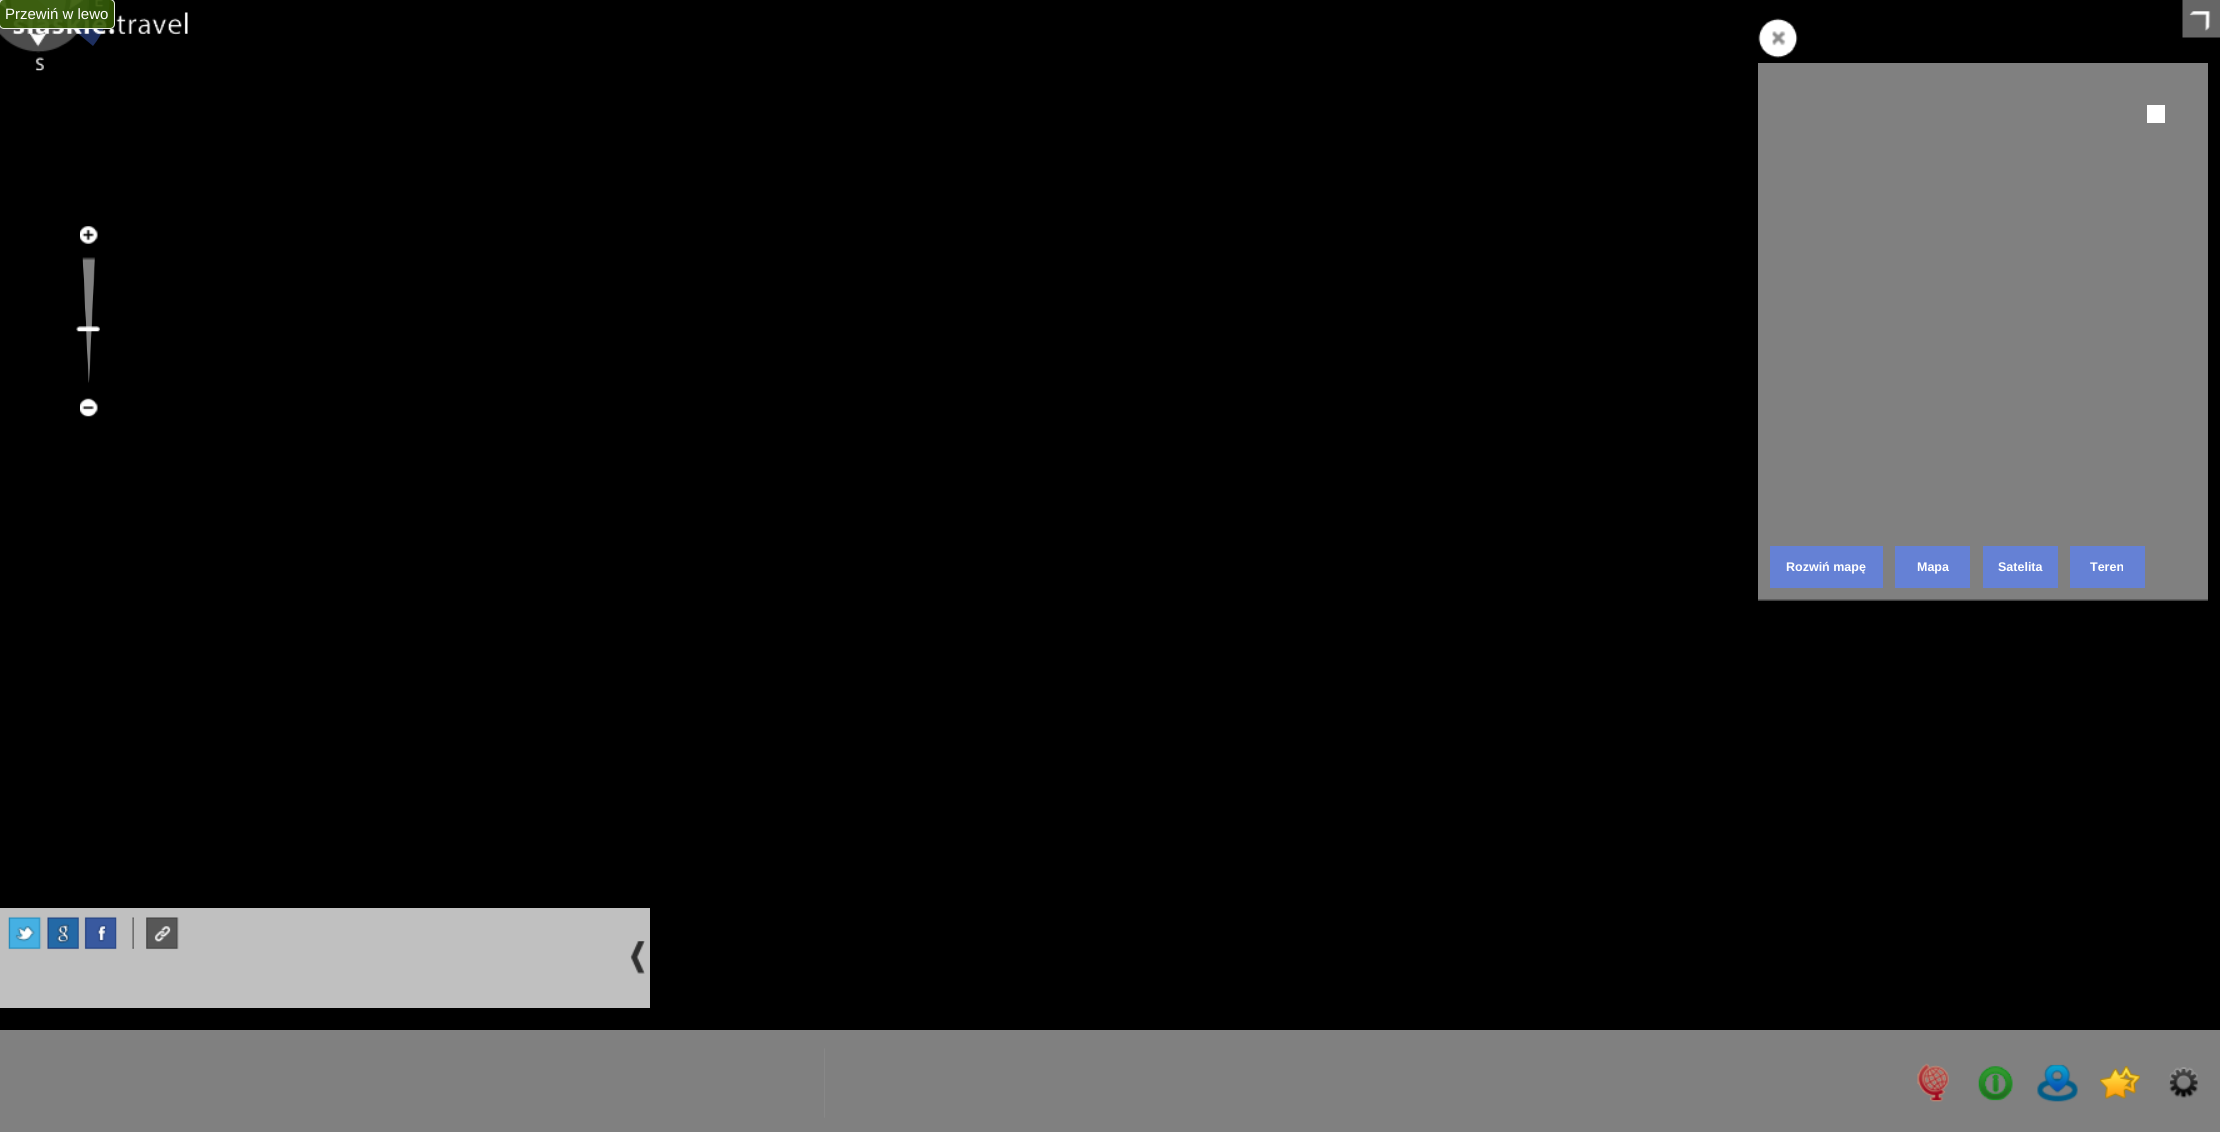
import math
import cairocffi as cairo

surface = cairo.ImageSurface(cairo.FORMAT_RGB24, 2220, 1132)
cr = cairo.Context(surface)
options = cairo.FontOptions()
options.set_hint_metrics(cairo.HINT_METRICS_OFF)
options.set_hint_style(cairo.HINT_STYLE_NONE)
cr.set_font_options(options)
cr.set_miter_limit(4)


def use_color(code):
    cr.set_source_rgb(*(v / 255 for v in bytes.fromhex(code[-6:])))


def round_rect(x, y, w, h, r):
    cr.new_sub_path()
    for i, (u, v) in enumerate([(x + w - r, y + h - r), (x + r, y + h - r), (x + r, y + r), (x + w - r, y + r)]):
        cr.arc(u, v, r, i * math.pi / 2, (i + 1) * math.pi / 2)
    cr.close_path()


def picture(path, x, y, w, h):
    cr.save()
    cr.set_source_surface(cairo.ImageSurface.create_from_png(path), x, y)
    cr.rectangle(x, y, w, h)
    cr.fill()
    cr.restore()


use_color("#000000")
cr.paint()
use_color("#1e2f5f")
cr.new_path()
cr.move_to(38, 0)
cr.line_to(93, -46)
cr.curve_to(115, -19, 115, 19, 93, 46)
cr.close_path()
cr.fill()
picture("img4.png", 35, 0, 69, 71)
picture("img3.png", 10, 0, 56, 28)
picture("img1.png", 0, 0, 89, 53)
picture("img2.png", 0, 0, 8, 9)
picture("img5.png", 69, 0, 14, 9)
picture("img6.png", 30, 32, 17, 15)
picture("img7.png", 2182, 0, 38, 38)
picture("img8.png", 12, 12, 176, 23)
cr.set_source_rgba(0.192, 0.341, 0, 0.9)
round_rect(-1, -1, 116, 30, 5)
cr.fill()
round_rect(-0.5, -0.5, 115, 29, 4.5)
cr.set_source_rgba(1, 1, 1, 0.9)
cr.set_line_width(1)
cr.stroke()
cr.select_font_face("Liberation Sans")
cr.set_font_size(15)
use_color("#ffffff")
cr.move_to(5, 19)
cr.show_text("Przewiń w lewo")
picture("img9.png", 80, 226, 18, 18)
picture("img10.png", 82, 257, 13, 126)
picture("img11.png", 76, 326, 24, 6)
picture("img12.png", 80, 398, 18, 19)
picture("img13.png", 1758, 63, 450, 538)
picture("img14.png", 1758, 18, 40, 40)
cr.rectangle(2147, 105, 18, 18)
cr.fill()
use_color("#6581d5")
cr.rectangle(1770, 546, 113, 42)
cr.fill()
cr.select_font_face("Liberation Sans", cairo.FONT_SLANT_NORMAL, cairo.FONT_WEIGHT_BOLD)
cr.set_font_size(12.5)
use_color("#ffffff")
cr.move_to(1786, 571)
cr.show_text("Rozwiń mapę")
use_color("#6581d5")
cr.rectangle(1895, 546, 75, 42)
cr.fill()
use_color("#ffffff")
cr.move_to(1917, 571)
cr.show_text("Mapa")
use_color("#6581d5")
cr.rectangle(1983, 546, 75, 42)
cr.fill()
use_color("#ffffff")
cr.move_to(1998, 571)
cr.show_text("Satelita")
use_color("#6581d5")
cr.rectangle(2070, 546, 75, 42)
cr.fill()
use_color("#ffffff")
cr.move_to(2090, 571)
cr.show_text("Teren")
use_color("#c0c0c0")
cr.rectangle(0, 908, 650, 100)
cr.fill()
picture("img15.png", 8, 916, 34, 34)
picture("img16.png", 47, 916, 32, 34)
picture("img17.png", 84, 916, 33, 34)
picture("img18.png", 132, 917, 2, 32)
picture("img19.png", 146, 917, 33, 33)
picture("img20.png", 630, 941, 15, 33)
use_color("#808080")
cr.rectangle(0, 1030, 2220, 102)
cr.fill()
picture("img21.png", 824, 1048, 1, 70)
picture("img22.png", 1917, 1063, 32, 39)
picture("img23.png", 1978, 1066, 35, 35)
picture("img24.png", 2037, 1064, 41, 38)
picture("img25.png", 2100, 1065, 40, 34)
picture("img26.png", 2169, 1067, 29, 31)
surface.write_to_png("result.png")
